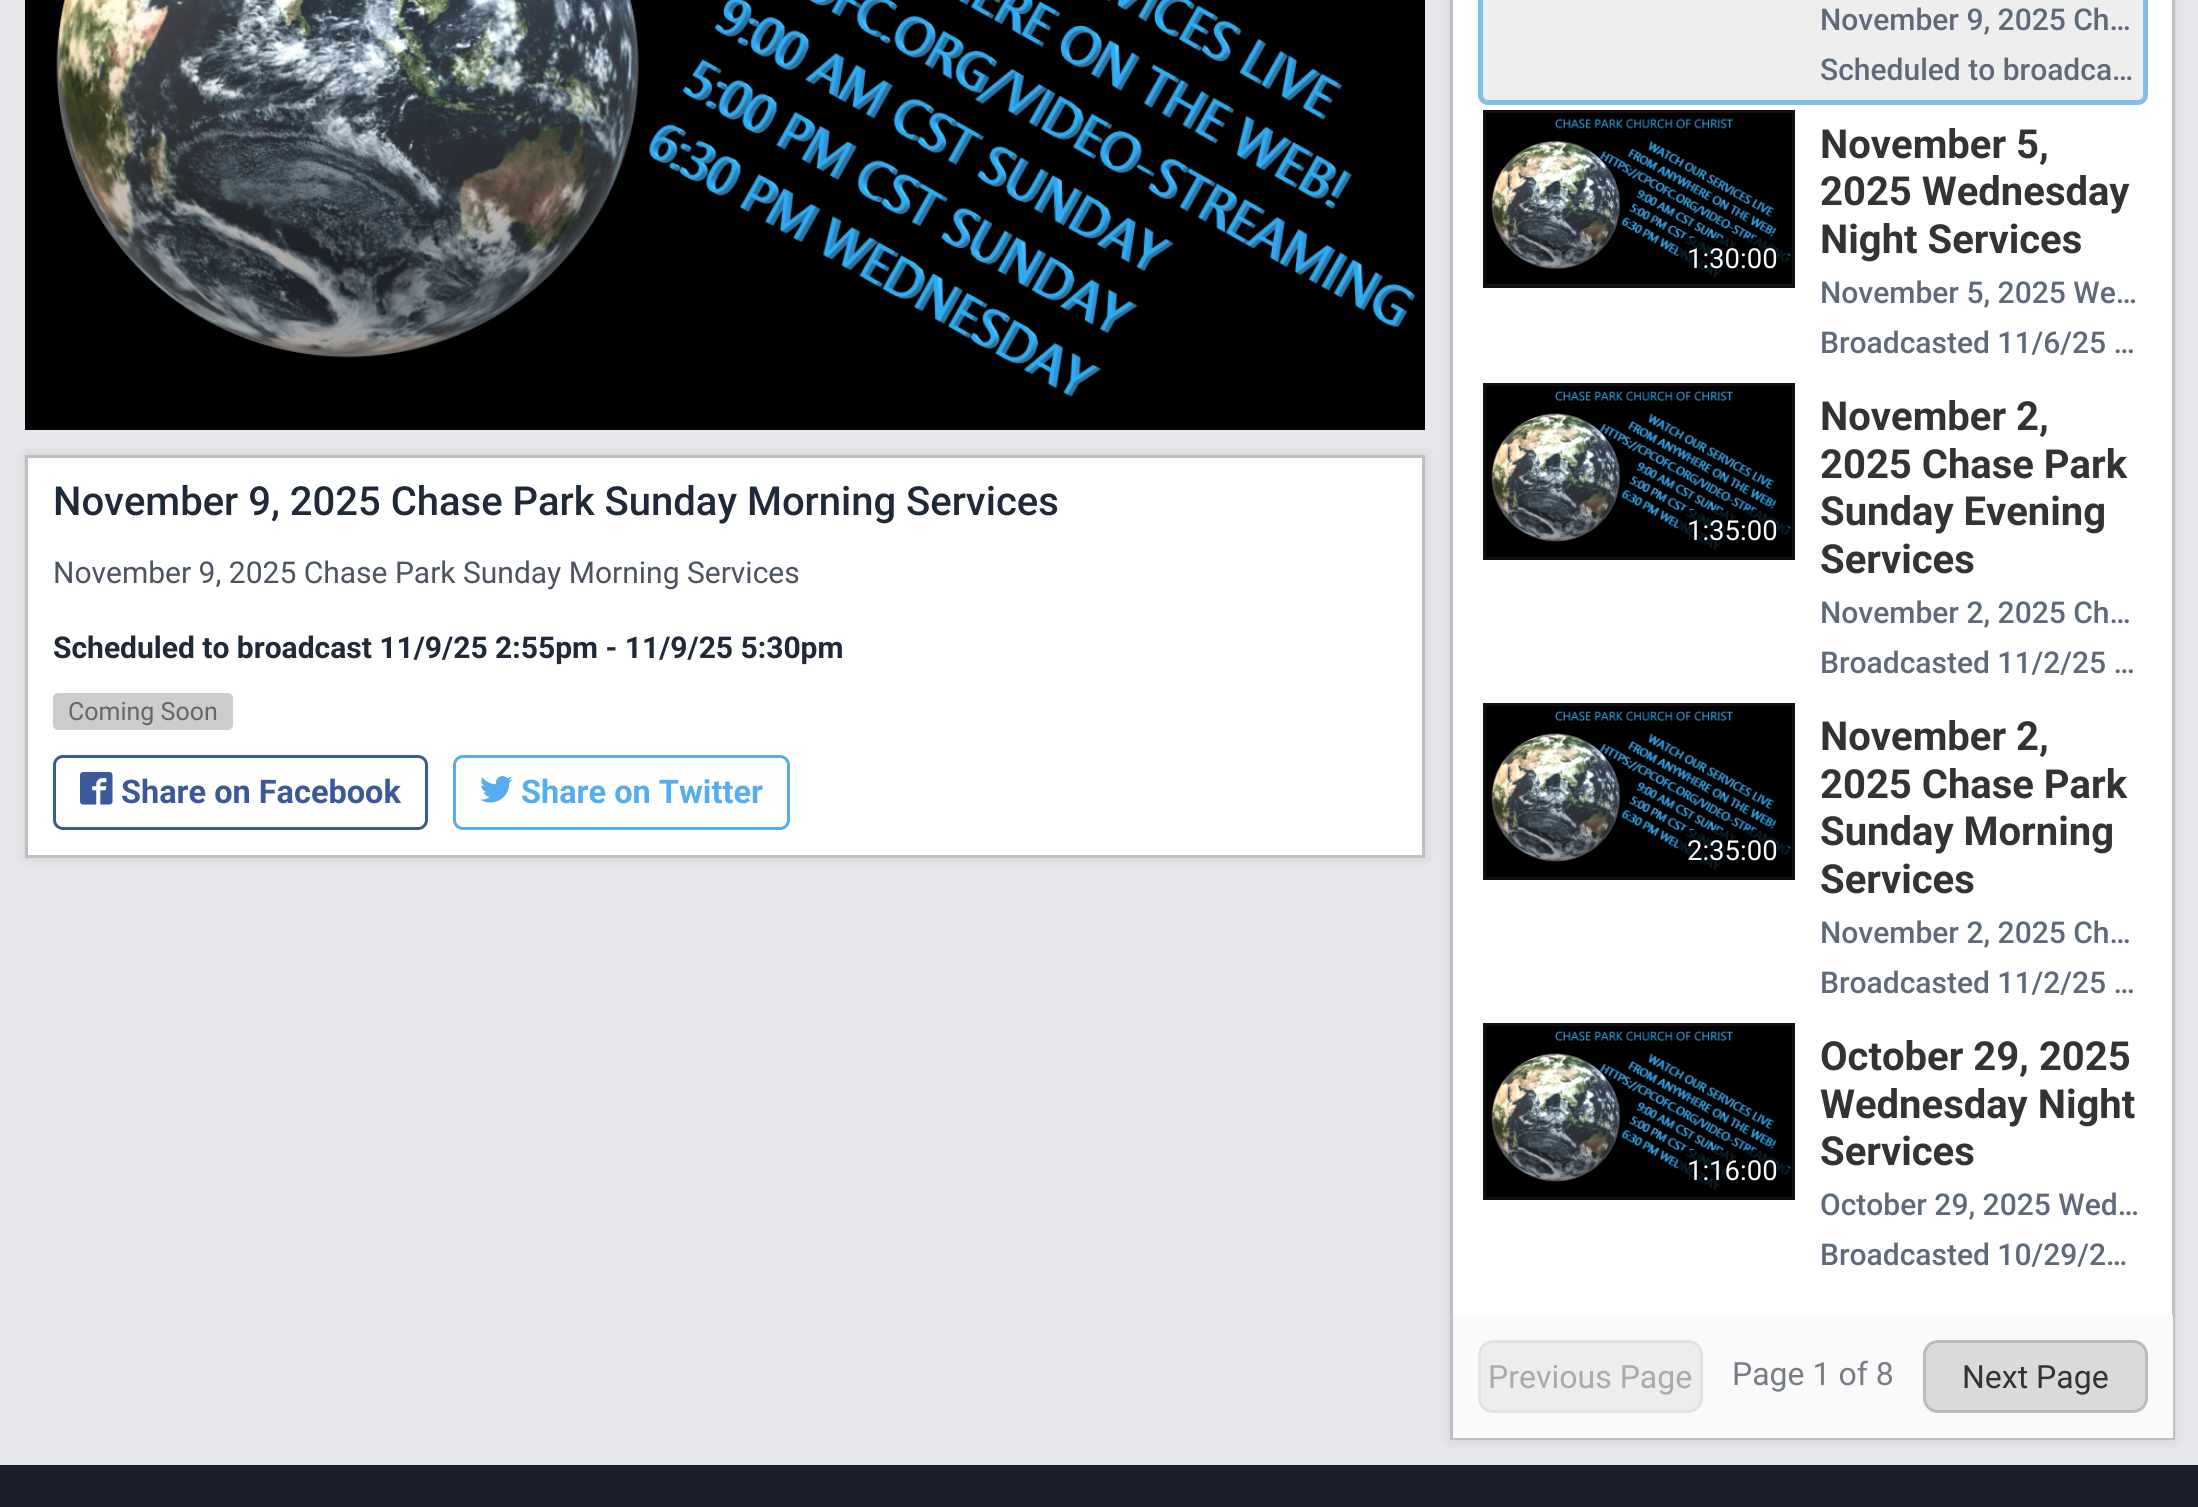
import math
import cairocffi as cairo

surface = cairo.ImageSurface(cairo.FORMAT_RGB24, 2198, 1507)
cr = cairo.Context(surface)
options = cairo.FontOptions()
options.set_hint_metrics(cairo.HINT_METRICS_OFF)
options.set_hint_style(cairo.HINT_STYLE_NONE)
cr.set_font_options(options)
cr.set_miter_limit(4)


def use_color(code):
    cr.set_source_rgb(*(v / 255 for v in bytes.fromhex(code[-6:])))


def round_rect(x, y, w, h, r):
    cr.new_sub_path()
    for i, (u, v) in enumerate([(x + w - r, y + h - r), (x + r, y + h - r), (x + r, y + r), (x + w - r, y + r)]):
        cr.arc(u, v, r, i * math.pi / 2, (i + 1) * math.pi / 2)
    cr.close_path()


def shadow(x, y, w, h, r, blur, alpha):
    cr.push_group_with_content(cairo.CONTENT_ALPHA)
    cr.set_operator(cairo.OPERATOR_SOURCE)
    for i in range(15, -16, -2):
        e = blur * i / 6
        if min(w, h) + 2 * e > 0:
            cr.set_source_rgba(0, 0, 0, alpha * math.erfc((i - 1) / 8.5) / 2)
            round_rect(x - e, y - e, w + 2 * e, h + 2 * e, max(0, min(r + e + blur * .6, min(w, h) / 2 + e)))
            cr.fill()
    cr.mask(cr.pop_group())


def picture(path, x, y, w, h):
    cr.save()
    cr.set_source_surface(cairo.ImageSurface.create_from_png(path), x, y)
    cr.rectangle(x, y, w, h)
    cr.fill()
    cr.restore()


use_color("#e5e7eb")
cr.paint()
use_color("#000000")
cr.rectangle(25, 0, 1400, 430)
cr.fill()
picture("img1.png", 56, 0, 1360, 397)
use_color("#000000")
shadow(25, 455, 1400, 403, 0, 6, 0.1)
use_color("#ffffff")
cr.rectangle(26.5, 456.5, 1397, 400)
cr.fill_preserve()
use_color("#bfbfbf")
cr.set_line_width(3)
cr.stroke()
cr.select_font_face("Roboto Medium")
cr.set_font_size(40)
use_color("#1f2937")
cr.move_to(53, 515)
cr.show_text("November 9, 2025 Chase Park Sunday Morning Services")
cr.select_font_face("Roboto")
cr.set_font_size(30)
use_color("#4c545f")
cr.move_to(53, 583)
cr.show_text("November 9, 2025 Chase Park Sunday Morning Services")
cr.select_font_face("Roboto", cairo.FONT_SLANT_NORMAL, cairo.FONT_WEIGHT_BOLD)
use_color("#1f2937")
cr.move_to(53, 658)
cr.show_text("Scheduled to broadcast 11/9/25 2:55pm - 11/9/25 5:30pm")
use_color("#cccccc")
round_rect(53, 693, 180, 37, 5)
cr.fill()
cr.select_font_face("Roboto")
cr.set_font_size(25)
use_color("#666666")
cr.move_to(68, 720)
cr.show_text("Coming Soon")
round_rect(54.5, 756.5, 372, 72, 8.5)
use_color("#3b5998")
cr.stroke()
picture("img2.png", 80, 772, 33, 33)
cr.select_font_face("Roboto", cairo.FONT_SLANT_NORMAL, cairo.FONT_WEIGHT_BOLD)
cr.set_font_size(32.5)
cr.move_to(121, 803)
cr.show_text("Share on Facebook")
round_rect(454.5, 756.5, 334, 72, 8.5)
use_color("#55acee")
cr.stroke()
picture("img3.png", 480, 776, 33, 27)
cr.move_to(521, 803)
cr.show_text("Share on Twitter")
use_color("#000000")
shadow(1450, -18, 725, 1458, 0, 6, 0.1)
use_color("#ffffff")
cr.rectangle(1453, 0, 719, 1315)
cr.fill()
cr.rectangle(1451.5, -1.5, 722, 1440)
use_color("#bfbfbf")
cr.stroke()
use_color("#eeeeee")
round_rect(1480.5, -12.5, 665, 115, 7.5)
cr.fill_preserve()
use_color("#7fbfe9")
cr.set_line_width(5)
cr.stroke()
cr.select_font_face("Roboto Medium")
cr.set_font_size(30)
use_color("#5e697a")
cr.move_to(1820, 30)
cr.show_text("November 9, 2025 Ch…")
cr.move_to(1820, 80)
cr.show_text("Scheduled to broadca…")
use_color("#333333")
cr.rectangle(1486, 284, 306, 1)
cr.fill()
picture("img4.png", 1486, 113, 306, 172)
cr.rectangle(1484.5, 111.5, 309, 175)
use_color("#111111")
cr.set_line_width(3)
cr.stroke()
cr.set_source_rgba(0, 0, 0, 0.8)
cr.rectangle(1678, 238, 110, 40)
cr.fill()
cr.select_font_face("Roboto")
cr.set_font_size(27.5)
use_color("#fafafa")
cr.move_to(1687, 268)
cr.show_text("1:30:00")
cr.select_font_face("Roboto", cairo.FONT_SLANT_NORMAL, cairo.FONT_WEIGHT_BOLD)
cr.set_font_size(40)
use_color("#333333")
cr.move_to(1820, 158)
cr.show_text("November 5,")
cr.move_to(1820, 205)
cr.show_text("2025 Wednesday")
cr.move_to(1820, 253)
cr.show_text("Night Services")
cr.select_font_face("Roboto Medium")
cr.set_font_size(30)
use_color("#5e697a")
cr.move_to(1820, 303)
cr.show_text("November 5, 2025 We…")
cr.move_to(1820, 353)
cr.show_text("Broadcasted 11/6/25 …")
picture("img5.png", 1486, 386, 306, 171)
cr.rectangle(1484.5, 384.5, 309, 174)
use_color("#111111")
cr.stroke()
cr.set_source_rgba(0, 0, 0, 0.8)
cr.rectangle(1678, 510, 110, 41)
cr.fill()
cr.select_font_face("Roboto")
cr.set_font_size(27.5)
use_color("#fafafa")
cr.move_to(1687, 540)
cr.show_text("1:35:00")
cr.select_font_face("Roboto", cairo.FONT_SLANT_NORMAL, cairo.FONT_WEIGHT_BOLD)
cr.set_font_size(40)
use_color("#333333")
cr.move_to(1820, 430)
cr.show_text("November 2,")
cr.move_to(1820, 478)
cr.show_text("2025 Chase Park")
cr.move_to(1820, 525)
cr.show_text("Sunday Evening")
cr.move_to(1820, 573)
cr.show_text("Services")
cr.select_font_face("Roboto Medium")
cr.set_font_size(30)
use_color("#5e697a")
cr.move_to(1820, 623)
cr.show_text("November 2, 2025 Ch…")
cr.move_to(1820, 673)
cr.show_text("Broadcasted 11/2/25 …")
picture("img5.png", 1486, 706, 306, 171)
cr.rectangle(1484.5, 704.5, 309, 174)
use_color("#111111")
cr.stroke()
cr.set_source_rgba(0, 0, 0, 0.8)
cr.rectangle(1678, 830, 110, 41)
cr.fill()
cr.select_font_face("Roboto")
cr.set_font_size(27.5)
use_color("#fafafa")
cr.move_to(1687, 860)
cr.show_text("2:35:00")
cr.select_font_face("Roboto", cairo.FONT_SLANT_NORMAL, cairo.FONT_WEIGHT_BOLD)
cr.set_font_size(40)
use_color("#333333")
cr.move_to(1820, 750)
cr.show_text("November 2,")
cr.move_to(1820, 798)
cr.show_text("2025 Chase Park")
cr.move_to(1820, 845)
cr.show_text("Sunday Morning")
cr.move_to(1820, 893)
cr.show_text("Services")
cr.select_font_face("Roboto Medium")
cr.set_font_size(30)
use_color("#5e697a")
cr.move_to(1820, 943)
cr.show_text("November 2, 2025 Ch…")
cr.move_to(1820, 993)
cr.show_text("Broadcasted 11/2/25 …")
picture("img5.png", 1486, 1026, 306, 171)
cr.rectangle(1484.5, 1024.5, 309, 174)
use_color("#111111")
cr.stroke()
cr.set_source_rgba(0, 0, 0, 0.8)
cr.rectangle(1678, 1150, 110, 41)
cr.fill()
cr.select_font_face("Roboto")
cr.set_font_size(27.5)
use_color("#fafafa")
cr.move_to(1687, 1180)
cr.show_text("1:16:00")
cr.select_font_face("Roboto", cairo.FONT_SLANT_NORMAL, cairo.FONT_WEIGHT_BOLD)
cr.set_font_size(40)
use_color("#333333")
cr.move_to(1820, 1070)
cr.show_text("October 29, 2025")
cr.move_to(1820, 1118)
cr.show_text("Wednesday Night")
cr.move_to(1820, 1165)
cr.show_text("Services")
cr.select_font_face("Roboto Medium")
cr.set_font_size(30)
use_color("#5e697a")
cr.move_to(1820, 1215)
cr.show_text("October 29, 2025 Wed…")
cr.move_to(1820, 1265)
cr.show_text("Broadcasted 10/29/2…")
use_color("#fafafa")
cr.rectangle(1453, 1315, 720, 123)
cr.fill()
use_color("#ededed")
round_rect(1479.5, 1341.5, 222, 70, 13.5)
cr.fill_preserve()
use_color("#e1e1e1")
cr.stroke()
cr.select_font_face("Roboto")
cr.set_font_size(32)
use_color("#aaaaaa")
cr.move_to(1488, 1388)
cr.show_text("Previous Page")
use_color("#777d85")
cr.move_to(1732, 1385)
cr.show_text("Page 1 of 8")
use_color("#dadada")
round_rect(1924.5, 1341.5, 222, 70, 13.5)
cr.fill_preserve()
use_color("#bbbbbb")
cr.stroke()
use_color("#333333")
cr.move_to(1962, 1388)
cr.show_text("Next Page")
use_color("#1d1f2a")
cr.rectangle(0, 1465, 2198, 42)
cr.fill()
surface.write_to_png("result.png")
